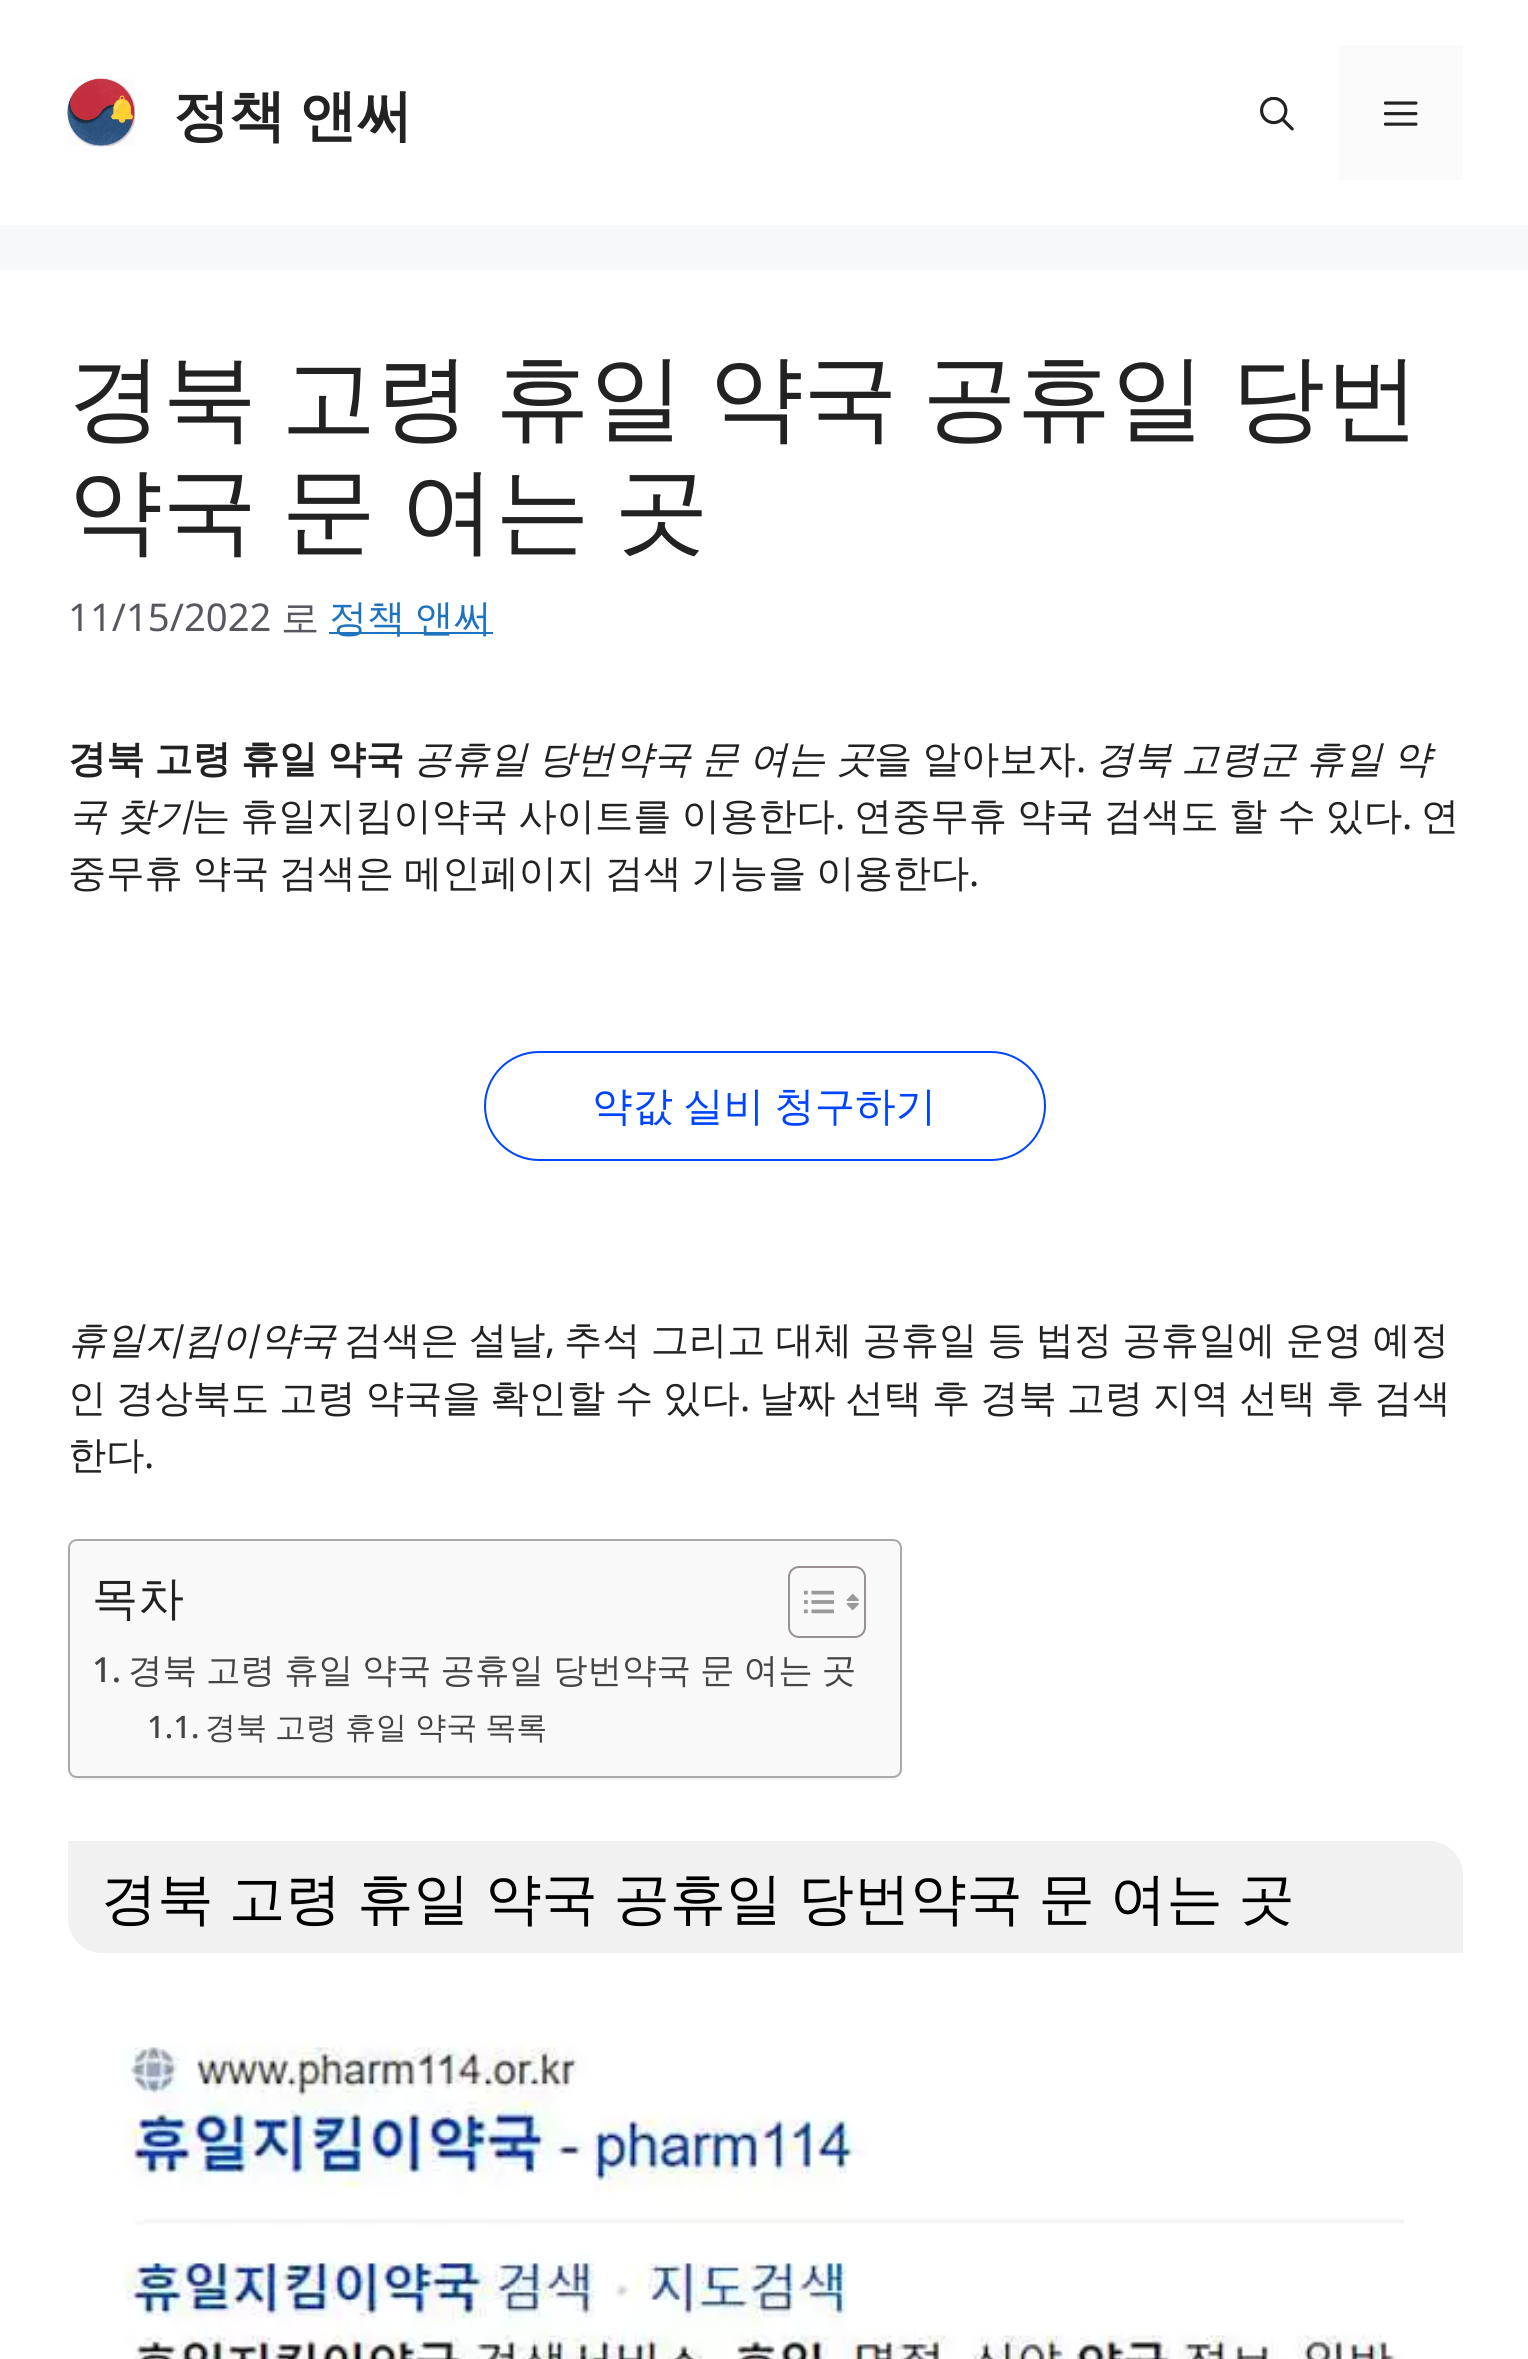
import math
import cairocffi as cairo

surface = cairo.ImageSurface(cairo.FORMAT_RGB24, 1528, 2359)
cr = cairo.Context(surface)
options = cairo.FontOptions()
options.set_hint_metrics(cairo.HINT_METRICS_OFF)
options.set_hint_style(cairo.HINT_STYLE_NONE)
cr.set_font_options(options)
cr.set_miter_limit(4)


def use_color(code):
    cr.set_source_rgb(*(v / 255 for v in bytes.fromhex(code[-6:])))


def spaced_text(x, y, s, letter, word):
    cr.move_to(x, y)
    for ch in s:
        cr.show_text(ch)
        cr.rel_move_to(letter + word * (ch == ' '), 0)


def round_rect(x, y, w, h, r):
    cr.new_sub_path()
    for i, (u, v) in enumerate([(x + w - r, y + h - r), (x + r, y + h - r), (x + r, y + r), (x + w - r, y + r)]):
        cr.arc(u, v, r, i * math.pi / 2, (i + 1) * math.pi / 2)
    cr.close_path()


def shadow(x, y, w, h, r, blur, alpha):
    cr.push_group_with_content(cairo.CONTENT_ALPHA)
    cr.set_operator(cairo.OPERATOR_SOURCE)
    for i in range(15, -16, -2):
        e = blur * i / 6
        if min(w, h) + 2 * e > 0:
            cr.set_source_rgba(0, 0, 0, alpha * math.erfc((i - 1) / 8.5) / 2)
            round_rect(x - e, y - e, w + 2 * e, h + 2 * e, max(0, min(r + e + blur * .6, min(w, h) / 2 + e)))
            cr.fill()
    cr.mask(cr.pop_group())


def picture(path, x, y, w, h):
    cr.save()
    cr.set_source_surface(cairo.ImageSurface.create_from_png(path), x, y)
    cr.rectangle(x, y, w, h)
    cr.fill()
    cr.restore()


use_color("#f7f8f9")
cr.paint()
use_color("#ffffff")
cr.rectangle(0, 0, 1528, 225)
cr.fill()
picture("img1.png", 67, 78, 68, 69)
cr.select_font_face("WenQuanYi Zen Hei", cairo.FONT_SLANT_NORMAL, cairo.FONT_WEIGHT_BOLD)
cr.set_font_size(56.25)
use_color("#222222")
spaced_text(173, 135, "정책 앤써", 0, -2)
picture("img2.png", 1260, 97, 34, 34)
use_color("#fafafa")
cr.rectangle(1339, 45, 124, 135)
cr.fill()
picture("img3.png", 1384, 101, 34, 25)
use_color("#ffffff")
cr.rectangle(0, 270, 1528, 2089)
cr.fill()
cr.select_font_face("WenQuanYi Zen Hei Medium")
cr.set_font_size(94.5)
use_color("#222222")
spaced_text(68, 430, "경북 고령 휴일 약국 공휴일 당번", 0, -3.75)
spaced_text(68, 543, "약국 문 여는 곳", 0, -3.75)
cr.select_font_face("Noto Sans")
cr.set_font_size(38.25)
use_color("#575760")
cr.move_to(68, 631)
cr.show_text("11/15/2022")
cr.select_font_face("WenQuanYi Zen Hei Medium")
cr.move_to(281, 631)
cr.show_text("로")
use_color("#1e73be")
cr.rectangle(329, 632, 164, 2)
cr.fill()
spaced_text(329, 631, "정책 앤써", 0, -1.5)
cr.select_font_face("WenQuanYi Zen Hei", cairo.FONT_SLANT_NORMAL, cairo.FONT_WEIGHT_BOLD)
use_color("#222222")
spaced_text(68, 772, "경북 고령 휴일 약국", 0, -1.5)
cr.select_font_face("WenQuanYi Zen Hei Medium", cairo.FONT_SLANT_ITALIC)
spaced_text(413, 772, "공휴일 당번약국 문 여는 곳", 0, -1.5)
cr.select_font_face("WenQuanYi Zen Hei Medium")
spaced_text(874, 772, "을 알아보자", 0, -1)
cr.select_font_face("Noto Sans")
cr.move_to(1076, 772)
cr.show_text(".")
cr.select_font_face("WenQuanYi Zen Hei Medium", cairo.FONT_SLANT_ITALIC)
spaced_text(1095, 772, "경북 고령군 휴일 약", 0, -1.5)
spaced_text(68, 829, "국 찾기", 0, -1.5)
cr.select_font_face("WenQuanYi Zen Hei Medium")
spaced_text(192, 829, "는 휴일지킴이약국 사이트를 이용한다", 0, -1.25)
cr.select_font_face("Noto Sans")
cr.move_to(835, 829)
cr.show_text(".")
cr.select_font_face("WenQuanYi Zen Hei Medium")
spaced_text(854, 829, "연중무휴 약국 검색도 할 수 있다", 0, -1.25)
cr.select_font_face("Noto Sans")
cr.move_to(1402, 829)
cr.show_text(".")
cr.select_font_face("WenQuanYi Zen Hei Medium")
cr.move_to(1421, 829)
cr.show_text("연")
spaced_text(68, 886, "중무휴 약국 검색은 메인페이지 검색 기능을 이용한다", 0, -1.5)
cr.select_font_face("Noto Sans")
cr.move_to(969, 886)
cr.show_text(".")
round_rect(485, 1052, 560, 108, 54)
use_color("#0044ff")
cr.stroke()
cr.select_font_face("WenQuanYi Zen Hei Medium")
cr.set_font_size(40.5)
spaced_text(592, 1120, "약값 실비 청구하기", 0, -2)
cr.select_font_face("WenQuanYi Zen Hei Medium", cairo.FONT_SLANT_ITALIC)
cr.set_font_size(38.25)
use_color("#222222")
cr.move_to(68, 1353)
cr.show_text("휴일지킴이약국")
cr.select_font_face("WenQuanYi Zen Hei Medium")
spaced_text(344, 1353, "검색은 설날", 0, -1.25)
cr.select_font_face("Noto Sans")
cr.move_to(545, 1353)
cr.show_text(",")
cr.select_font_face("WenQuanYi Zen Hei Medium")
spaced_text(564, 1353, "추석 그리고 대체 공휴일 등 법정 공휴일에 운영 예정", 0, -1.25)
spaced_text(68, 1411, "인 경상북도 고령 약국을 확인할 수 있다", 0, -1.5)
cr.select_font_face("Noto Sans")
cr.move_to(740, 1411)
cr.show_text(".")
cr.select_font_face("WenQuanYi Zen Hei Medium")
spaced_text(759, 1411, "날짜 선택 후 경북 고령 지역 선택 후 검색", 0, -1.5)
cr.move_to(68, 1468)
cr.show_text("한다")
cr.select_font_face("Noto Sans")
cr.move_to(144, 1468)
cr.show_text(".")
use_color("#000000")
shadow(68, 1541, 834, 239, 9, 1, 0.05)
use_color("#f9f9f9")
round_rect(69, 1540, 832, 237, 8)
cr.fill_preserve()
use_color("#aaaaaa")
cr.stroke()
cr.select_font_face("WenQuanYi Zen Hei Medium")
cr.set_font_size(46)
use_color("#222222")
cr.move_to(92, 1614)
cr.show_text("목차")
round_rect(789, 1567, 76, 70, 10)
use_color("#999191")
cr.stroke()
picture("img4.png", 804, 1590, 30, 24)
picture("img5.png", 846, 1593, 13, 18)
cr.select_font_face("Noto Sans Medium")
cr.set_font_size(34.5)
use_color("#444444")
cr.move_to(92, 1682)
cr.show_text("1.")
cr.select_font_face("WenQuanYi Zen Hei Medium")
spaced_text(128, 1682, "경북 고령 휴일 약국 공휴일 당번약국 문 여는 곳", 0, -1.25)
cr.select_font_face("Noto Sans Medium")
cr.set_font_size(31)
cr.move_to(147, 1738)
cr.show_text("1.1.")
cr.select_font_face("WenQuanYi Zen Hei Medium")
spaced_text(205, 1738, "경북 고령 휴일 약국 목록", 0, -1.25)
use_color("#f1f1f1")
cr.new_path()
cr.move_to(68, 1841)
cr.line_to(1429, 1841)
cr.curve_to(1448, 1841, 1463, 1856, 1463, 1875)
cr.line_to(1463, 1953)
cr.line_to(102, 1953)
cr.curve_to(83, 1953, 68, 1938, 68, 1919)
cr.close_path()
cr.fill()
cr.set_font_size(56.25)
use_color("#000000")
spaced_text(101, 1918, "경북 고령 휴일 약국 공휴일 당번약국 문 여는 곳", 0, -1.25)
picture("img6.png", 121, 2041, 1283, 318)
surface.write_to_png("result.png")
